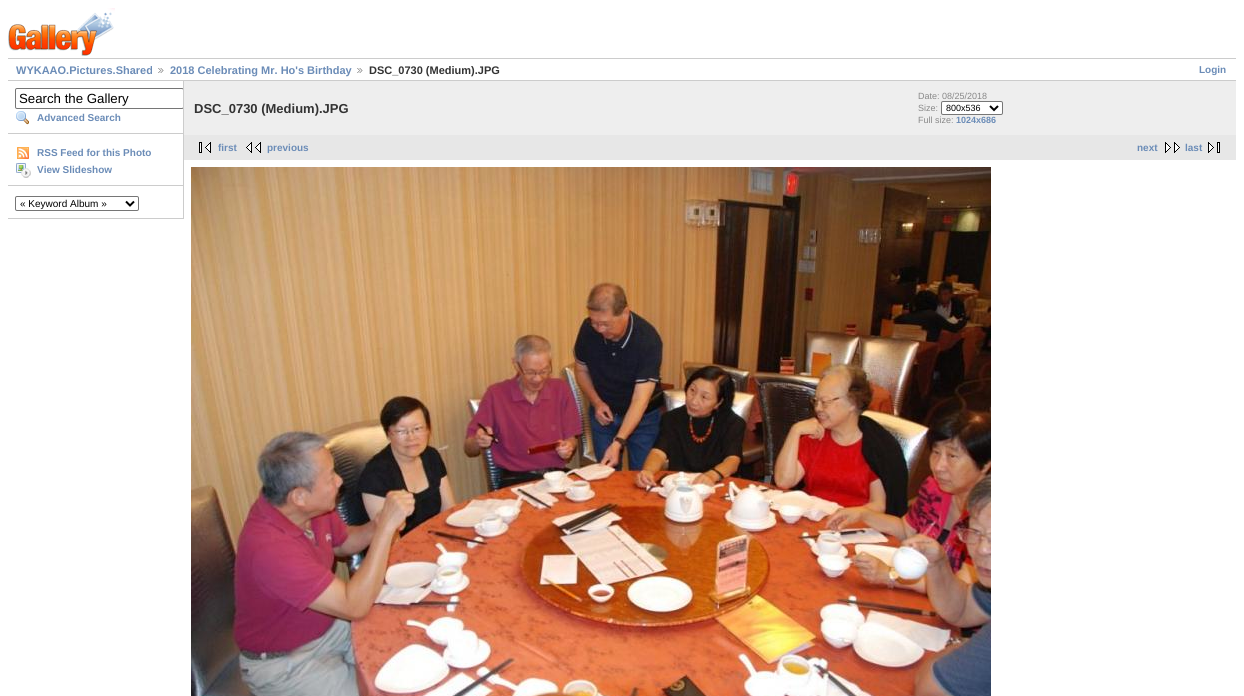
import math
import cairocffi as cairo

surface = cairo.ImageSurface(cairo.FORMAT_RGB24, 1244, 696)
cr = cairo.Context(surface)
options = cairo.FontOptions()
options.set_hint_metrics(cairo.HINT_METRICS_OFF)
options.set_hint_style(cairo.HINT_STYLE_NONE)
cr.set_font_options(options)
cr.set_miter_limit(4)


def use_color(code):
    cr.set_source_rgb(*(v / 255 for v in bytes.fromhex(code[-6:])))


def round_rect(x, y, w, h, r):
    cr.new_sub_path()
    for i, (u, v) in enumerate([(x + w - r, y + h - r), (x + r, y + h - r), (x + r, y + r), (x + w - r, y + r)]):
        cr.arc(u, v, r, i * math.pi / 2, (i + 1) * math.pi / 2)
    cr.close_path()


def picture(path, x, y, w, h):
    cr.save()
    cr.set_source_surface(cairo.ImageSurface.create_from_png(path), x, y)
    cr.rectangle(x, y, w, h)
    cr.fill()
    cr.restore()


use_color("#ffffff")
cr.paint()
picture("img1.png", 8, 8, 107, 48)
use_color("#cccccc")
cr.rectangle(8, 58, 1228, 1)
cr.fill()
cr.rectangle(8, 80, 1228, 1)
cr.fill()
cr.select_font_face("Liberation Sans", cairo.FONT_SLANT_NORMAL, cairo.FONT_WEIGHT_BOLD)
cr.set_font_size(11)
use_color("#6b8cb7")
cr.move_to(16, 74)
cr.show_text("WYKAAO.Pictures.Shared")
picture("img2.png", 158, 68, 6, 5)
cr.move_to(170, 74)
cr.show_text("2018 Celebrating Mr. Ho's Birthday")
picture("img2.png", 357, 68, 6, 5)
use_color("#333333")
cr.move_to(369, 74)
cr.show_text("DSC_0730 (Medium).JPG")
cr.set_font_size(10)
use_color("#6b8cb7")
cr.move_to(1199, 73)
cr.show_text("Login")
use_color("#cccccc")
cr.rectangle(183, 81, 1, 138)
cr.fill()
cr.rectangle(8, 133, 175, 1)
cr.fill()
cr.save()
cr.rectangle(8, 81, 175, 138)
cr.clip()
round_rect(15.5, 88.5, 168, 20, 1.5)
use_color("#767676")
cr.set_line_width(1)
cr.stroke()
cr.restore()
cr.select_font_face("Liberation Sans")
cr.set_font_size(13.25)
use_color("#000000")
cr.move_to(19, 103)
cr.show_text("Search the Gallery")
picture("img3.png", 16, 111, 13, 14)
cr.select_font_face("Liberation Sans", cairo.FONT_SLANT_NORMAL, cairo.FONT_WEIGHT_BOLD)
cr.set_font_size(10)
use_color("#6b8cb7")
cr.move_to(37, 121)
cr.show_text("Advanced Search")
use_color("#cccccc")
cr.rectangle(8, 185, 175, 1)
cr.fill()
picture("img4.png", 17, 147, 12, 12)
use_color("#6b8cb7")
cr.move_to(37, 156)
cr.show_text("RSS Feed for this Photo")
picture("img5.png", 16, 163, 15, 15)
cr.move_to(37, 173)
cr.show_text("View Slideshow")
use_color("#cccccc")
cr.rectangle(8, 218, 175, 1)
cr.fill()
round_rect(15.5, 196.5, 123, 14, 1.5)
use_color("#767676")
cr.set_line_width(1)
cr.stroke()
cr.new_path()
cr.move_to(126, 201.5)
cr.line_to(130, 205.5)
cr.line_to(134, 201.5)
use_color("#000000")
cr.set_line_width(2)
cr.stroke()
cr.select_font_face("Liberation Sans")
cr.move_to(20, 207)
cr.show_text("« Keyword Album »")
use_color("#eeeeee")
cr.rectangle(184, 81, 1052, 54)
cr.fill()
cr.select_font_face("Liberation Sans", cairo.FONT_SLANT_NORMAL, cairo.FONT_WEIGHT_BOLD)
cr.set_font_size(13)
use_color("#333333")
cr.move_to(194, 113)
cr.show_text("DSC_0730 (Medium).JPG")
cr.select_font_face("Liberation Sans")
cr.set_font_size(9)
use_color("#888888")
cr.move_to(918, 99)
cr.show_text("Date: 08/25/2018")
cr.move_to(918, 111)
cr.show_text("Size:")
use_color("#ffffff")
round_rect(941.5, 101.5, 61, 13, 1.5)
cr.fill_preserve()
use_color("#767676")
cr.set_line_width(1)
cr.stroke()
cr.new_path()
cr.move_to(990, 106)
cr.line_to(994, 110)
cr.line_to(998, 106)
use_color("#000000")
cr.set_line_width(2)
cr.stroke()
cr.move_to(946, 111)
cr.show_text("800x536")
use_color("#888888")
cr.move_to(918, 123)
cr.show_text("Full size:")
cr.select_font_face("Liberation Sans", cairo.FONT_SLANT_NORMAL, cairo.FONT_WEIGHT_BOLD)
use_color("#6b8cb7")
cr.move_to(956, 123)
cr.show_text("1024x686")
use_color("#e7e7e7")
cr.rectangle(184, 135, 1052, 25)
cr.fill()
picture("img6.png", 199, 142, 12, 11)
cr.set_font_size(10)
use_color("#6b8cb7")
cr.move_to(218, 151)
cr.show_text("first")
picture("img7.png", 246, 142, 15, 11)
cr.move_to(267, 151)
cr.show_text("previous")
cr.move_to(1137, 151)
cr.show_text("next")
picture("img8.png", 1165, 142, 15, 11)
cr.move_to(1185, 151)
cr.show_text("last")
picture("img9.png", 1208, 142, 12, 11)
picture("img10.png", 191, 167, 800, 529)
surface.write_to_png("result.png")
